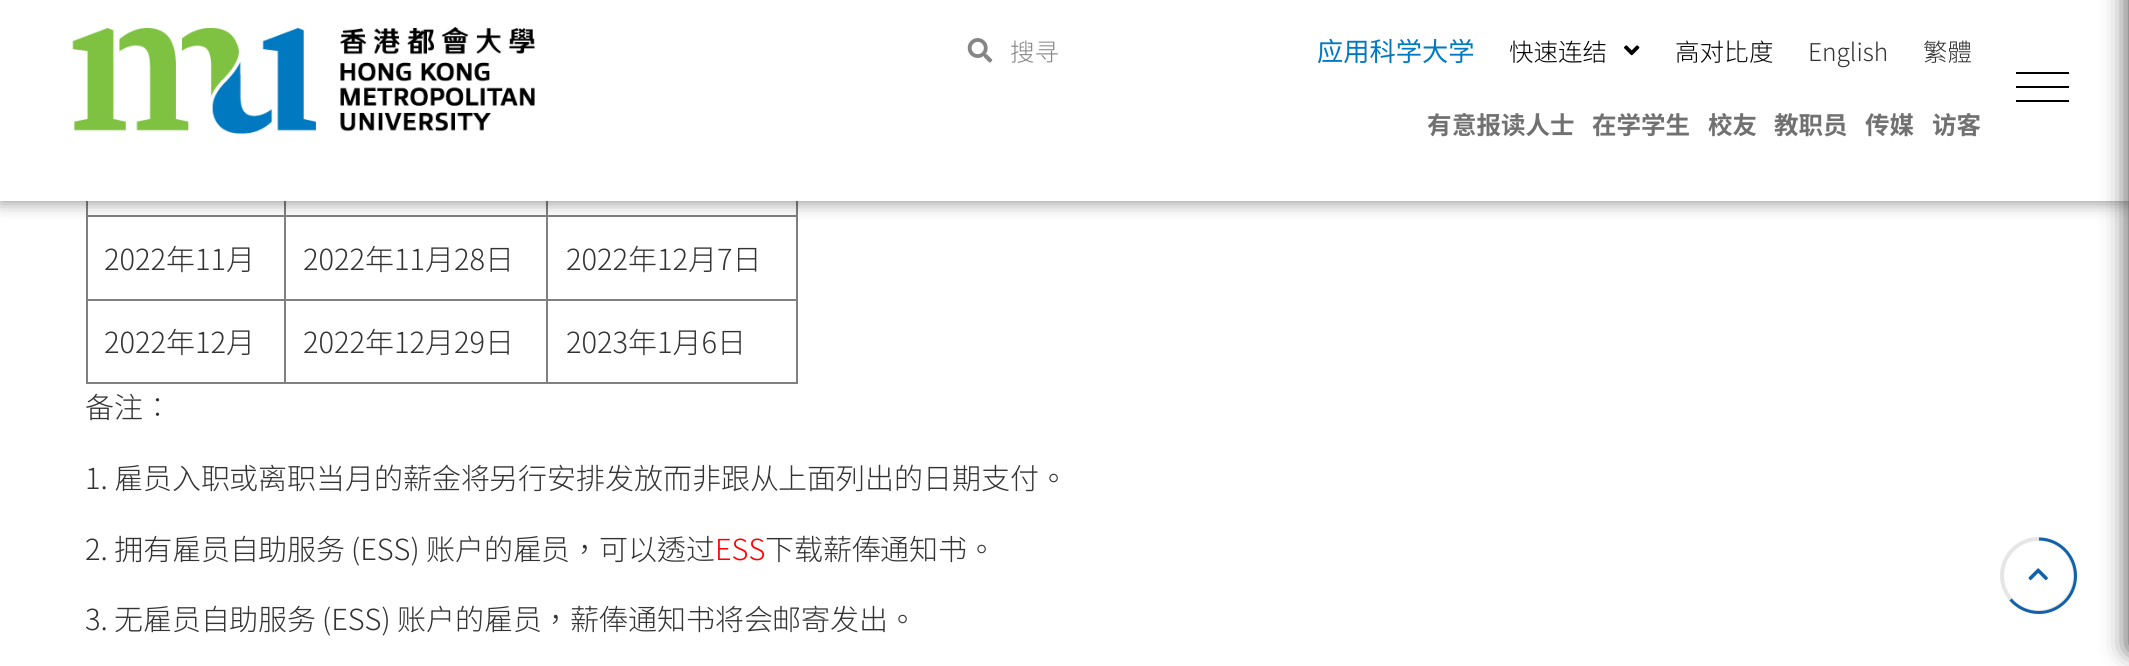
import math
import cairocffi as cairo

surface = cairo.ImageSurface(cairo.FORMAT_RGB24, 2129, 666)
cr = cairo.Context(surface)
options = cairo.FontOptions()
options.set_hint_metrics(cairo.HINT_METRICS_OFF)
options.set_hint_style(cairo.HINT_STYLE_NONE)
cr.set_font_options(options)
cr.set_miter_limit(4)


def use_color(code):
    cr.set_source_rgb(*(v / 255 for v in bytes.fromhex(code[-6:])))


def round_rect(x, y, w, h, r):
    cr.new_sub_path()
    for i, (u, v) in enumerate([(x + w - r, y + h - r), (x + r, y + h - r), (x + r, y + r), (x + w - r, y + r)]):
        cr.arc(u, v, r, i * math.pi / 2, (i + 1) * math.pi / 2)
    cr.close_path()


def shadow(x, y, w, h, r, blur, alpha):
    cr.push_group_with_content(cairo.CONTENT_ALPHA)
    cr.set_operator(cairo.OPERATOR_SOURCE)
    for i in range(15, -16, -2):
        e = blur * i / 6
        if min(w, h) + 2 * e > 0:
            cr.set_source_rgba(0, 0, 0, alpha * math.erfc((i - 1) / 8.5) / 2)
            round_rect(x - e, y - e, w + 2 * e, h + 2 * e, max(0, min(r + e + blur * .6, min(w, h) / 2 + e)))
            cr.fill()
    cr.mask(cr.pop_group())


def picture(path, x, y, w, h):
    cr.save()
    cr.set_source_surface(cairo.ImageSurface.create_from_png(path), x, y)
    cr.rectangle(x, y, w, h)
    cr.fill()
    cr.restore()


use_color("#ffffff")
cr.paint()
use_color("#808080")
cr.rectangle(796, 201, 2, 182)
cr.fill()
cr.rectangle(86, 382, 712, 2)
cr.fill()
cr.rectangle(86, 201, 2, 182)
cr.fill()
cr.rectangle(546, 215, 252, 2)
cr.fill()
cr.rectangle(546, 299, 252, 2)
cr.fill()
cr.rectangle(546, 299, 2, 84)
cr.fill()
cr.rectangle(284, 299, 264, 2)
cr.fill()
cr.rectangle(546, 215, 2, 86)
cr.fill()
cr.rectangle(284, 215, 264, 2)
cr.fill()
cr.rectangle(284, 299, 2, 84)
cr.fill()
cr.rectangle(86, 299, 199, 2)
cr.fill()
cr.rectangle(284, 215, 2, 86)
cr.fill()
cr.rectangle(86, 215, 199, 2)
cr.fill()
cr.rectangle(284, 201, 2, 16)
cr.fill()
cr.rectangle(546, 201, 2, 16)
cr.fill()
use_color("#000000")
shadow(0, 0, 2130, 201, 0, 9, 0.5)
use_color("#ffffff")
cr.rectangle(0, 0, 2129, 201)
cr.fill()
picture("img1.png", 72, 27, 463, 107)
picture("img2.png", 967, 38, 26, 25)
cr.select_font_face("Noto Sans SC Light")
cr.set_font_size(24.5)
use_color("#858585")
cr.move_to(1010, 61)
cr.show_text("搜寻")
cr.select_font_face("Noto Sans SC")
cr.set_font_size(26.25)
use_color("#0079c1")
cr.move_to(1317, 61)
cr.show_text("应用科学大学")
cr.select_font_face("Noto Sans SC Light")
cr.set_font_size(24.5)
use_color("#000000")
cr.move_to(1509, 61)
cr.show_text("快速连结")
picture("img3.png", 1624, 45, 16, 11)
cr.move_to(1675, 61)
cr.show_text("高对")
cr.select_font_face("Noto Sans TC Light")
cr.move_to(1724, 61)
cr.show_text("比")
cr.select_font_face("Noto Sans SC Light")
cr.move_to(1749, 61)
cr.show_text("度")
cr.select_font_face("Noto Sans TC Light")
use_color("#333333")
cr.move_to(1808, 61)
cr.show_text("English")
cr.move_to(1923, 61)
cr.show_text("繁體")
cr.select_font_face("Noto Sans TC", cairo.FONT_SLANT_NORMAL, cairo.FONT_WEIGHT_BOLD)
use_color("#727171")
cr.move_to(1427, 134)
cr.show_text("有")
cr.select_font_face("Noto Sans SC", cairo.FONT_SLANT_NORMAL, cairo.FONT_WEIGHT_BOLD)
cr.move_to(1452, 134)
cr.show_text("意报读人")
cr.select_font_face("Noto Sans TC", cairo.FONT_SLANT_NORMAL, cairo.FONT_WEIGHT_BOLD)
cr.move_to(1550, 134)
cr.show_text("士")
cr.move_to(1592, 134)
cr.show_text("在学学生")
cr.move_to(1708, 134)
cr.show_text("校友")
cr.select_font_face("Noto Sans SC", cairo.FONT_SLANT_NORMAL, cairo.FONT_WEIGHT_BOLD)
cr.move_to(1774, 134)
cr.show_text("教职员")
cr.move_to(1865, 134)
cr.show_text("传媒")
cr.move_to(1932, 134)
cr.show_text("访客")
use_color("#000000")
cr.rectangle(2016, 86, 53, 2)
cr.fill()
cr.rectangle(2016, 72, 53, 2)
cr.fill()
cr.rectangle(2016, 100, 53, 2)
cr.fill()
use_color("#2d2d2d")
shadow(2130, -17, 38, 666, 0, 13, 1)
cr.select_font_face("Noto Sans TC Light")
cr.set_font_size(29)
use_color("#333333")
cr.move_to(104, 270)
cr.show_text("2022年11月")
cr.move_to(303, 270)
cr.show_text("2022年11月28日")
cr.move_to(566, 270)
cr.show_text("2022年12月7日")
cr.move_to(104, 353)
cr.show_text("2022年12月")
cr.move_to(303, 353)
cr.show_text("2022年12月29日")
cr.move_to(566, 353)
cr.show_text("2023年1月6日")
cr.move_to(85, 418)
cr.show_text("备注︰")
cr.move_to(85, 489)
cr.show_text("1. 雇")
cr.select_font_face("Noto Sans SC Light")
cr.move_to(143, 489)
cr.show_text("员入职")
cr.select_font_face("Noto Sans TC Light")
cr.move_to(229, 489)
cr.show_text("或离")
cr.select_font_face("Noto Sans SC Light")
cr.move_to(287, 489)
cr.show_text("职当")
cr.select_font_face("Noto Sans TC Light")
cr.move_to(345, 489)
cr.show_text("月的薪")
cr.select_font_face("Noto Sans SC Light")
cr.move_to(432, 489)
cr.show_text("金将")
cr.select_font_face("Noto Sans TC Light")
cr.move_to(489, 489)
cr.show_text("另")
cr.select_font_face("Noto Sans SC Light")
cr.move_to(518, 489)
cr.show_text("行安")
cr.select_font_face("Noto Sans TC Light")
cr.move_to(576, 489)
cr.show_text("排")
cr.select_font_face("Noto Sans SC Light")
cr.move_to(605, 489)
cr.show_text("发")
cr.select_font_face("Noto Sans TC Light")
cr.move_to(634, 489)
cr.show_text("放而非跟从")
cr.select_font_face("Noto Sans SC Light")
cr.move_to(778, 489)
cr.show_text("上面")
cr.select_font_face("Noto Sans TC Light")
cr.move_to(836, 489)
cr.show_text("列")
cr.select_font_face("Noto Sans SC Light")
cr.move_to(865, 489)
cr.show_text("出")
cr.select_font_face("Noto Sans TC Light")
cr.move_to(894, 489)
cr.show_text("的日期支付。")
cr.move_to(85, 560)
cr.show_text("2. 拥有雇")
cr.select_font_face("Noto Sans SC Light")
cr.move_to(201, 560)
cr.show_text("员自")
cr.select_font_face("Noto Sans TC Light")
cr.move_to(258, 560)
cr.show_text("助")
cr.select_font_face("Noto Sans SC Light")
cr.move_to(287, 560)
cr.show_text("服务")
cr.select_font_face("Noto Sans TC Light")
cr.move_to(351, 560)
cr.show_text("(ESS)")
cr.select_font_face("Noto Sans SC Light")
cr.move_to(426, 560)
cr.show_text("账户")
cr.select_font_face("Noto Sans TC Light")
cr.move_to(484, 560)
cr.show_text("的雇")
cr.select_font_face("Noto Sans SC Light")
cr.move_to(541, 560)
cr.show_text("员")
cr.select_font_face("Noto Sans TC Light")
cr.move_to(570, 560)
cr.show_text("，")
cr.select_font_face("Noto Sans SC Light")
cr.move_to(599, 560)
cr.show_text("可以")
cr.select_font_face("Noto Sans TC Light")
cr.move_to(657, 560)
cr.show_text("透")
cr.select_font_face("Noto Sans SC Light")
cr.move_to(686, 560)
cr.show_text("过")
cr.select_font_face("Noto Sans TC Light")
use_color("#ff0000")
cr.move_to(715, 560)
cr.show_text("ESS")
cr.select_font_face("Noto Sans SC Light")
use_color("#333333")
cr.move_to(765, 560)
cr.show_text("下载")
cr.select_font_face("Noto Sans TC Light")
cr.move_to(823, 560)
cr.show_text("薪俸")
cr.select_font_face("Noto Sans SC Light")
cr.move_to(880, 560)
cr.show_text("通知书")
cr.select_font_face("Noto Sans TC Light")
cr.move_to(967, 560)
cr.show_text("。")
cr.move_to(85, 630)
cr.show_text("3.")
cr.select_font_face("Noto Sans SC Light")
cr.move_to(114, 630)
cr.show_text("无")
cr.select_font_face("Noto Sans TC Light")
cr.move_to(143, 630)
cr.show_text("雇")
cr.select_font_face("Noto Sans SC Light")
cr.move_to(172, 630)
cr.show_text("员自")
cr.select_font_face("Noto Sans TC Light")
cr.move_to(229, 630)
cr.show_text("助")
cr.select_font_face("Noto Sans SC Light")
cr.move_to(258, 630)
cr.show_text("服务")
cr.select_font_face("Noto Sans TC Light")
cr.move_to(322, 630)
cr.show_text("(ESS)")
cr.select_font_face("Noto Sans SC Light")
cr.move_to(397, 630)
cr.show_text("账户")
cr.select_font_face("Noto Sans TC Light")
cr.move_to(455, 630)
cr.show_text("的雇")
cr.select_font_face("Noto Sans SC Light")
cr.move_to(513, 630)
cr.show_text("员")
cr.select_font_face("Noto Sans TC Light")
cr.move_to(541, 630)
cr.show_text("，薪俸")
cr.select_font_face("Noto Sans SC Light")
cr.move_to(628, 630)
cr.show_text("通知书将会")
cr.select_font_face("Noto Sans TC Light")
cr.move_to(772, 630)
cr.show_text("邮寄")
cr.select_font_face("Noto Sans SC Light")
cr.move_to(830, 630)
cr.show_text("发出")
cr.select_font_face("Noto Sans TC Light")
cr.move_to(888, 630)
cr.show_text("。")
cr.new_path()
cr.arc(2038.5, 575.5, 36.5, 0, 2 * math.pi)
use_color("#e6e6e6")
cr.set_line_width(4)
cr.stroke()
cr.new_path()
cr.move_to(2039, 539)
cr.curve_to(2059, 539, 2075.5, 555.5, 2075.5, 576)
cr.curve_to(2075.5, 596, 2059, 612.5, 2039, 612.5)
cr.curve_to(2027.5, 612.5, 2017.5, 607.5, 2010.5, 599.5)
use_color("#1162ab")
cr.set_line_width(3)
cr.stroke()
picture("img4.png", 2028, 568, 20, 13)
surface.write_to_png("result.png")
